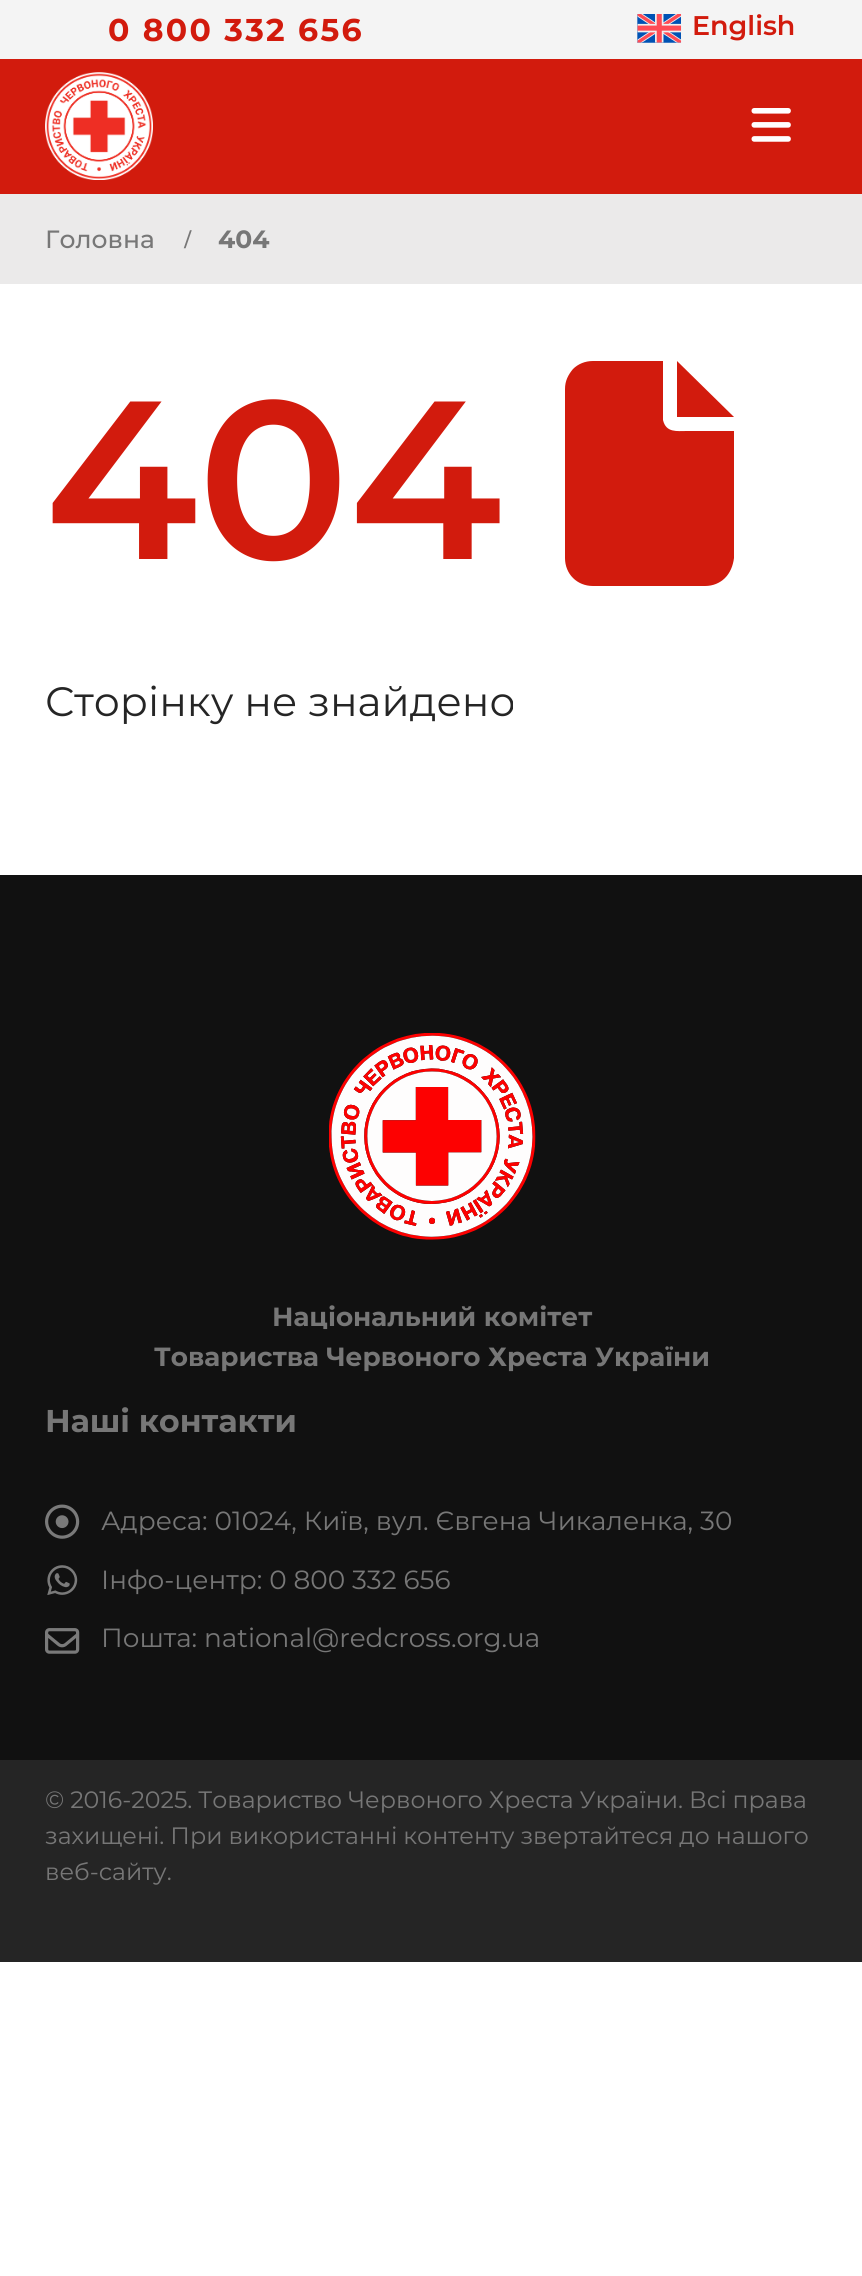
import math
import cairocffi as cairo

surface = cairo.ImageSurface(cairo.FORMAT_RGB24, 862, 2276)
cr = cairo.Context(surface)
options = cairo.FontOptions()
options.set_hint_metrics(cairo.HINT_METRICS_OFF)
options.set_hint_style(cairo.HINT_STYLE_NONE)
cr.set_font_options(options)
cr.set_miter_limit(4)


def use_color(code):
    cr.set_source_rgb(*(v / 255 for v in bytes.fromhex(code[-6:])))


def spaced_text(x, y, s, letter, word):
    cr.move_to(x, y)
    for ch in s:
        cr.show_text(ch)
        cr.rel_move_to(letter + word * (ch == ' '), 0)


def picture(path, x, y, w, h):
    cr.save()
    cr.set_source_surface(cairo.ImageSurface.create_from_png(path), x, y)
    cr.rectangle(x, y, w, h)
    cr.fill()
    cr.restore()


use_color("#ffffff")
cr.paint()
use_color("#f4f4f4")
cr.rectangle(0, 0, 862, 59)
cr.fill()
cr.select_font_face("Montserrat", cairo.FONT_SLANT_NORMAL, cairo.FONT_WEIGHT_BOLD)
cr.set_font_size(31.5)
use_color("#d21b0d")
spaced_text(108, 41, "0 800 332 656", 2.25, 0)
picture("img1.png", 637, 14, 45, 29)
cr.select_font_face("Montserrat SemiBold")
cr.set_font_size(27)
cr.move_to(692, 35)
cr.show_text("English")
cr.rectangle(0, 59, 862, 135)
cr.fill()
picture("img2.png", 45, 72, 108, 108)
picture("img3.png", 751, 108, 40, 34)
use_color("#ebeaea")
cr.rectangle(0, 194, 862, 90)
cr.fill()
cr.select_font_face("Montserrat Medium")
cr.set_font_size(25)
use_color("#777777")
cr.move_to(45, 248)
cr.show_text("Головна")
cr.select_font_face("Liberation Serif", cairo.FONT_SLANT_NORMAL, cairo.FONT_WEIGHT_BOLD)
cr.set_font_size(27)
cr.move_to(184, 248)
cr.show_text("/")
cr.select_font_face("Montserrat", cairo.FONT_SLANT_NORMAL, cairo.FONT_WEIGHT_BOLD)
cr.set_font_size(25)
cr.move_to(218, 248)
cr.show_text("404")
cr.select_font_face("Montserrat SemiBold")
cr.set_font_size(225)
use_color("#d21b0d")
cr.move_to(45, 559)
cr.show_text("404")
cr.new_path()
cr.move_to(565, 389)
cr.curve_to(565, 381, 568, 375, 573, 369)
cr.curve_to(578, 364, 585, 361, 593, 361)
cr.line_to(663, 361)
cr.line_to(663, 420)
cr.curve_to(666, 433, 677, 431, 687, 431)
cr.line_to(734, 431)
cr.line_to(734, 558)
cr.curve_to(733, 566, 730, 573, 725, 578)
cr.curve_to(720, 583, 713, 586, 705, 586)
cr.line_to(593, 586)
cr.curve_to(585, 586, 578, 583, 573, 578)
cr.curve_to(568, 573, 565, 566, 565, 558)
cr.close_path()
cr.move_to(734, 417)
cr.line_to(677, 417)
cr.line_to(734, 417)
cr.line_to(677, 417)
cr.line_to(677, 361)
cr.close_path()
cr.fill()
cr.select_font_face("Montserrat")
cr.set_font_size(41)
use_color("#252525")
cr.move_to(45, 716)
cr.show_text("Сторінку не знайдено")
use_color("#111111")
cr.rectangle(0, 875, 862, 885)
cr.fill()
picture("img4.png", 329, 1033, 207, 207)
cr.select_font_face("Montserrat", cairo.FONT_SLANT_NORMAL, cairo.FONT_WEIGHT_BOLD)
cr.set_font_size(26.3)
use_color("#777777")
cr.move_to(272, 1326)
cr.show_text("Національний комітет")
cr.move_to(154, 1366)
cr.show_text("Товариства Червоного Хреста України")
cr.set_font_size(31.5)
cr.move_to(45, 1432)
cr.show_text("Наші контакти")
picture("img5.png", 45, 1504, 35, 35)
cr.select_font_face("Montserrat")
cr.set_font_size(26.3)
cr.move_to(101, 1530)
cr.show_text("Адреса: 01024, Київ, вул. Євгена Чикаленка, 30")
picture("img6.png", 47, 1565, 31, 30)
cr.move_to(101, 1589)
cr.show_text("Інфо-центр: 0 800 332 656")
picture("img7.png", 45, 1628, 35, 26)
cr.move_to(101, 1647)
cr.show_text("Пошта: national@redcross.org.ua")
use_color("#252525")
cr.rectangle(0, 1760, 862, 202)
cr.fill()
cr.set_font_size(23.7)
use_color("#777777")
spaced_text(45, 1808, "© 2016-2025. Товариство Червоного Хреста України. Всі права", 0, -0.25)
spaced_text(45, 1844, "захищені. При використанні контенту звертайтеся до нашого", 0, -0.25)
cr.move_to(45, 1880)
cr.show_text("веб-сайту.")
surface.write_to_png("result.png")
